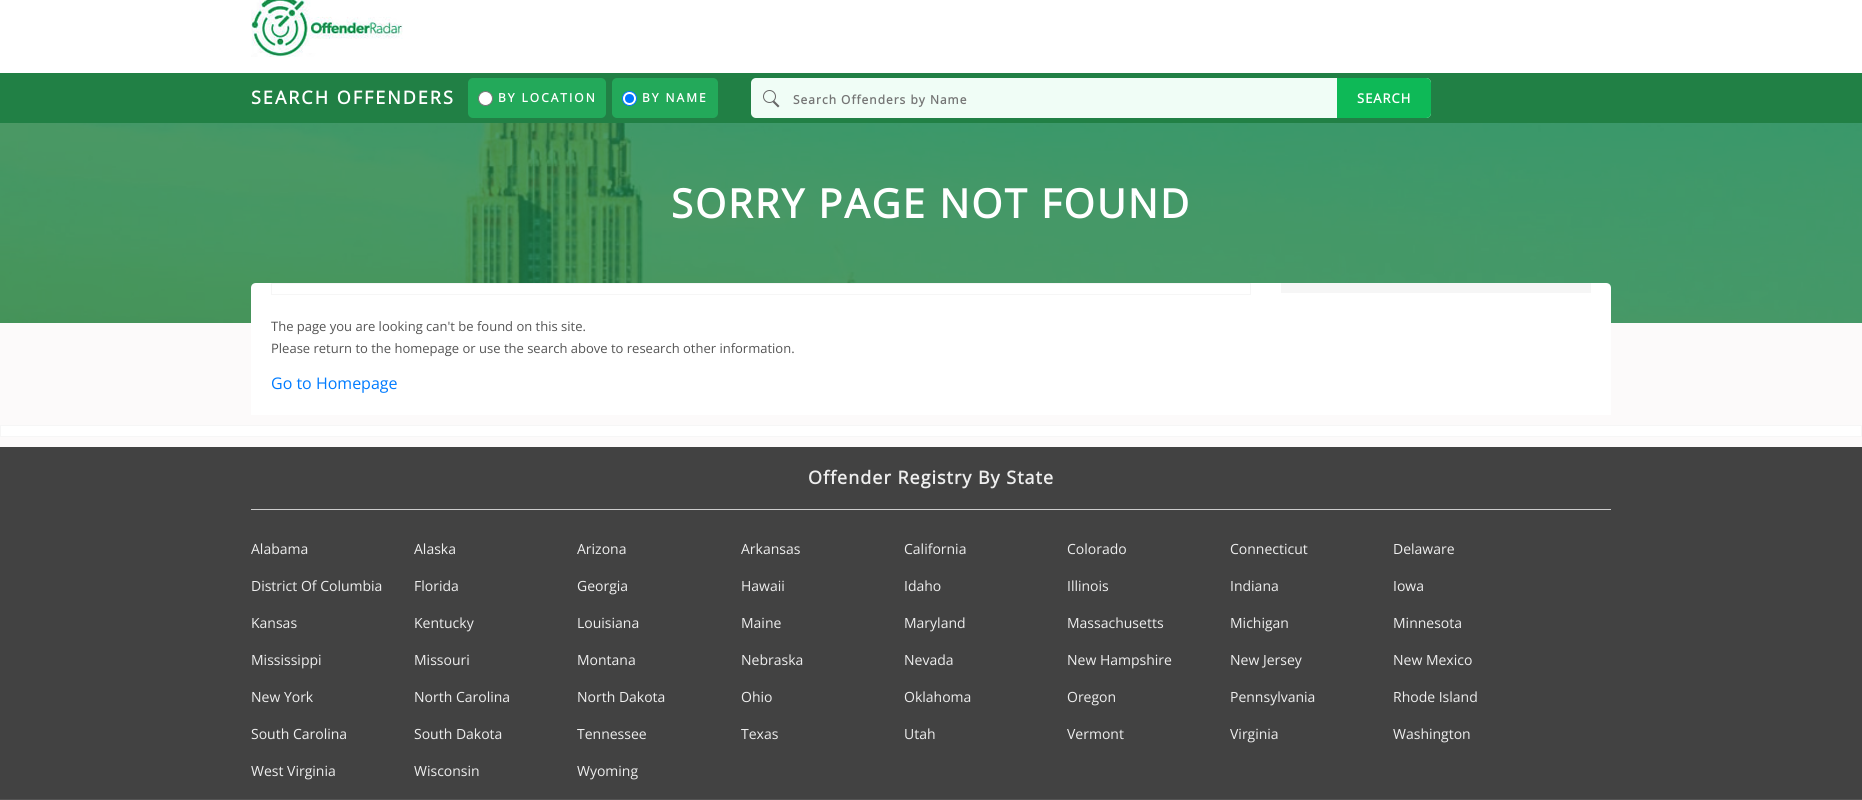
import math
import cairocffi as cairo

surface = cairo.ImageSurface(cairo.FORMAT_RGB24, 1862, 800)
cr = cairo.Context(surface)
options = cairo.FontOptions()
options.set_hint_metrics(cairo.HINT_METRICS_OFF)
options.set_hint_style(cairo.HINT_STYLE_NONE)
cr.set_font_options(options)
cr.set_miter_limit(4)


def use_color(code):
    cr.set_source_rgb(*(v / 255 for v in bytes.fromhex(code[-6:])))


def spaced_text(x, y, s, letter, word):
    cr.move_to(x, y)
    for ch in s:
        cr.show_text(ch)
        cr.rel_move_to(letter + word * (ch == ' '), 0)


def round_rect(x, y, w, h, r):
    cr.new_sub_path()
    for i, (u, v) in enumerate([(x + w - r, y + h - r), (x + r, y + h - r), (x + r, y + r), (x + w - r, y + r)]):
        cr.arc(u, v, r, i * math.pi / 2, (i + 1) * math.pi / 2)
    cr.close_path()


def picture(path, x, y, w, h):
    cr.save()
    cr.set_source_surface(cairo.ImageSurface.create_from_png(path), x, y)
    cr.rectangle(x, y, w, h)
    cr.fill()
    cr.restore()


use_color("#fcfafa")
cr.paint()
use_color("#ffffff")
cr.rectangle(0, 0, 1862, 73)
cr.fill()
picture("img1.png", 251, 0, 152, 57)
use_color("#218045")
cr.rectangle(0, 73, 1862, 50)
cr.fill()
cr.select_font_face("Open Sans", cairo.FONT_SLANT_NORMAL, cairo.FONT_WEIGHT_BOLD)
cr.set_font_size(18)
use_color("#ffffff")
spaced_text(251, 104, "SEARCH OFFENDERS", 2, 0)
use_color("#23a95a")
round_rect(468, 78, 138, 40, 5)
cr.fill()
use_color("#ffffff")
cr.arc(485.5, 98.5, 7, 0, 2 * math.pi)
cr.fill_preserve()
use_color("#767676")
cr.set_line_width(1)
cr.stroke()
cr.set_font_size(12)
use_color("#ffffff")
spaced_text(498, 102, "BY LOCATION", 2, 0)
use_color("#23a95a")
round_rect(612, 78, 106, 40, 5)
cr.fill()
use_color("#ffffff")
cr.arc(629.5, 98.5, 7, 0, 2 * math.pi)
cr.fill_preserve()
use_color("#0075ff")
cr.stroke()
cr.arc(629.5, 98.5, 4.5, 0, 2 * math.pi)
cr.fill()
use_color("#ffffff")
spaced_text(642, 102, "BY NAME", 2, 0)
use_color("#f0fdf6")
round_rect(751, 78, 680, 40, 5)
cr.fill()
cr.arc(769.5, 96.5, 6, 0, 2 * math.pi)
use_color("#666666")
cr.stroke()
use_color("#757575")
spaced_text(793, 104, "Search Offenders by Name", 1, 0)
use_color("#0eb957")
cr.new_path()
cr.move_to(1337, 78)
cr.line_to(1426, 78)
cr.curve_to(1429, 78, 1431, 80, 1431, 83)
cr.line_to(1431, 113)
cr.curve_to(1431, 116, 1429, 118, 1426, 118)
cr.line_to(1337, 118)
cr.close_path()
cr.fill()
cr.set_font_size(13)
use_color("#ffffff")
spaced_text(1357, 103, "SEARCH", 1, 0)
use_color("#666666")
cr.new_path()
cr.move_to(774, 100.5)
cr.line_to(779.5, 106)
cr.line_to(778, 107.5)
cr.line_to(772.5, 102)
cr.close_path()
cr.fill()
picture("img2.png", 0, 123, 1862, 200)
cr.set_font_size(40)
use_color("#ffffff")
spaced_text(671, 218, "SORRY PAGE NOT FOUND", 2, 0)
cr.new_path()
cr.move_to(256, 283)
cr.line_to(1606, 283)
cr.curve_to(1609, 283, 1611, 285, 1611, 288)
cr.line_to(1611, 415)
cr.line_to(251, 415)
cr.line_to(251, 288)
cr.curve_to(251, 285, 253, 283, 256, 283)
cr.close_path()
cr.fill()
use_color("#f6f6f6")
cr.rectangle(1281, 283, 310, 10)
cr.fill()
cr.rectangle(271.5, 283.5, 979, 11)
cr.stroke()
cr.select_font_face("Open Sans")
cr.set_font_size(13)
use_color("#555555")
cr.move_to(271, 331)
cr.show_text("The page you are looking can't be found on this site.")
cr.move_to(271, 353)
cr.show_text("Please return to the homepage or use the search above to research other information.")
cr.set_font_size(16)
use_color("#007bff")
cr.move_to(271, 389)
cr.show_text("Go to Homepage")
use_color("#ffffff")
cr.rectangle(0.5, 425.5, 1861, 11)
cr.fill_preserve()
use_color("#f6f6f6")
cr.stroke()
use_color("#424242")
cr.rectangle(0, 447, 1862, 352)
cr.fill()
use_color("#cccccc")
cr.rectangle(251, 509, 1360, 1)
cr.fill()
cr.select_font_face("Open Sans", cairo.FONT_SLANT_NORMAL, cairo.FONT_WEIGHT_BOLD)
cr.set_font_size(18)
use_color("#eeeeee")
spaced_text(808, 484, "Offender Registry By State", 1, 0)
cr.select_font_face("Open Sans")
cr.set_font_size(14)
cr.move_to(251, 554)
cr.show_text("Alabama")
cr.move_to(414, 554)
cr.show_text("Alaska")
cr.move_to(577, 554)
cr.show_text("Arizona")
cr.move_to(741, 554)
cr.show_text("Arkansas")
cr.move_to(904, 554)
cr.show_text("California")
cr.move_to(1067, 554)
cr.show_text("Colorado")
cr.move_to(1230, 554)
cr.show_text("Connecticut")
cr.move_to(1393, 554)
cr.show_text("Delaware")
cr.move_to(251, 591)
cr.show_text("District Of Columbia")
cr.move_to(414, 591)
cr.show_text("Florida")
cr.move_to(577, 591)
cr.show_text("Georgia")
cr.move_to(741, 591)
cr.show_text("Hawaii")
cr.move_to(904, 591)
cr.show_text("Idaho")
cr.move_to(1067, 591)
cr.show_text("Illinois")
cr.move_to(1230, 591)
cr.show_text("Indiana")
cr.move_to(1393, 591)
cr.show_text("Iowa")
cr.move_to(251, 628)
cr.show_text("Kansas")
cr.move_to(414, 628)
cr.show_text("Kentucky")
cr.move_to(577, 628)
cr.show_text("Louisiana")
cr.move_to(741, 628)
cr.show_text("Maine")
cr.move_to(904, 628)
cr.show_text("Maryland")
cr.move_to(1067, 628)
cr.show_text("Massachusetts")
cr.move_to(1230, 628)
cr.show_text("Michigan")
cr.move_to(1393, 628)
cr.show_text("Minnesota")
cr.move_to(251, 665)
cr.show_text("Mississippi")
cr.move_to(414, 665)
cr.show_text("Missouri")
cr.move_to(577, 665)
cr.show_text("Montana")
cr.move_to(741, 665)
cr.show_text("Nebraska")
cr.move_to(904, 665)
cr.show_text("Nevada")
cr.move_to(1067, 665)
cr.show_text("New Hampshire")
cr.move_to(1230, 665)
cr.show_text("New Jersey")
cr.move_to(1393, 665)
cr.show_text("New Mexico")
cr.move_to(251, 702)
cr.show_text("New York")
cr.move_to(414, 702)
cr.show_text("North Carolina")
cr.move_to(577, 702)
cr.show_text("North Dakota")
cr.move_to(741, 702)
cr.show_text("Ohio")
cr.move_to(904, 702)
cr.show_text("Oklahoma")
cr.move_to(1067, 702)
cr.show_text("Oregon")
cr.move_to(1230, 702)
cr.show_text("Pennsylvania")
cr.move_to(1393, 702)
cr.show_text("Rhode Island")
cr.move_to(251, 739)
cr.show_text("South Carolina")
cr.move_to(414, 739)
cr.show_text("South Dakota")
cr.move_to(577, 739)
cr.show_text("Tennessee")
cr.move_to(741, 739)
cr.show_text("Texas")
cr.move_to(904, 739)
cr.show_text("Utah")
cr.move_to(1067, 739)
cr.show_text("Vermont")
cr.move_to(1230, 739)
cr.show_text("Virginia")
cr.move_to(1393, 739)
cr.show_text("Washington")
cr.move_to(251, 776)
cr.show_text("West Virginia")
cr.move_to(414, 776)
cr.show_text("Wisconsin")
cr.move_to(577, 776)
cr.show_text("Wyoming")
use_color("#545454")
cr.rectangle(0, 799, 1862, 1)
cr.fill()
surface.write_to_png("result.png")
